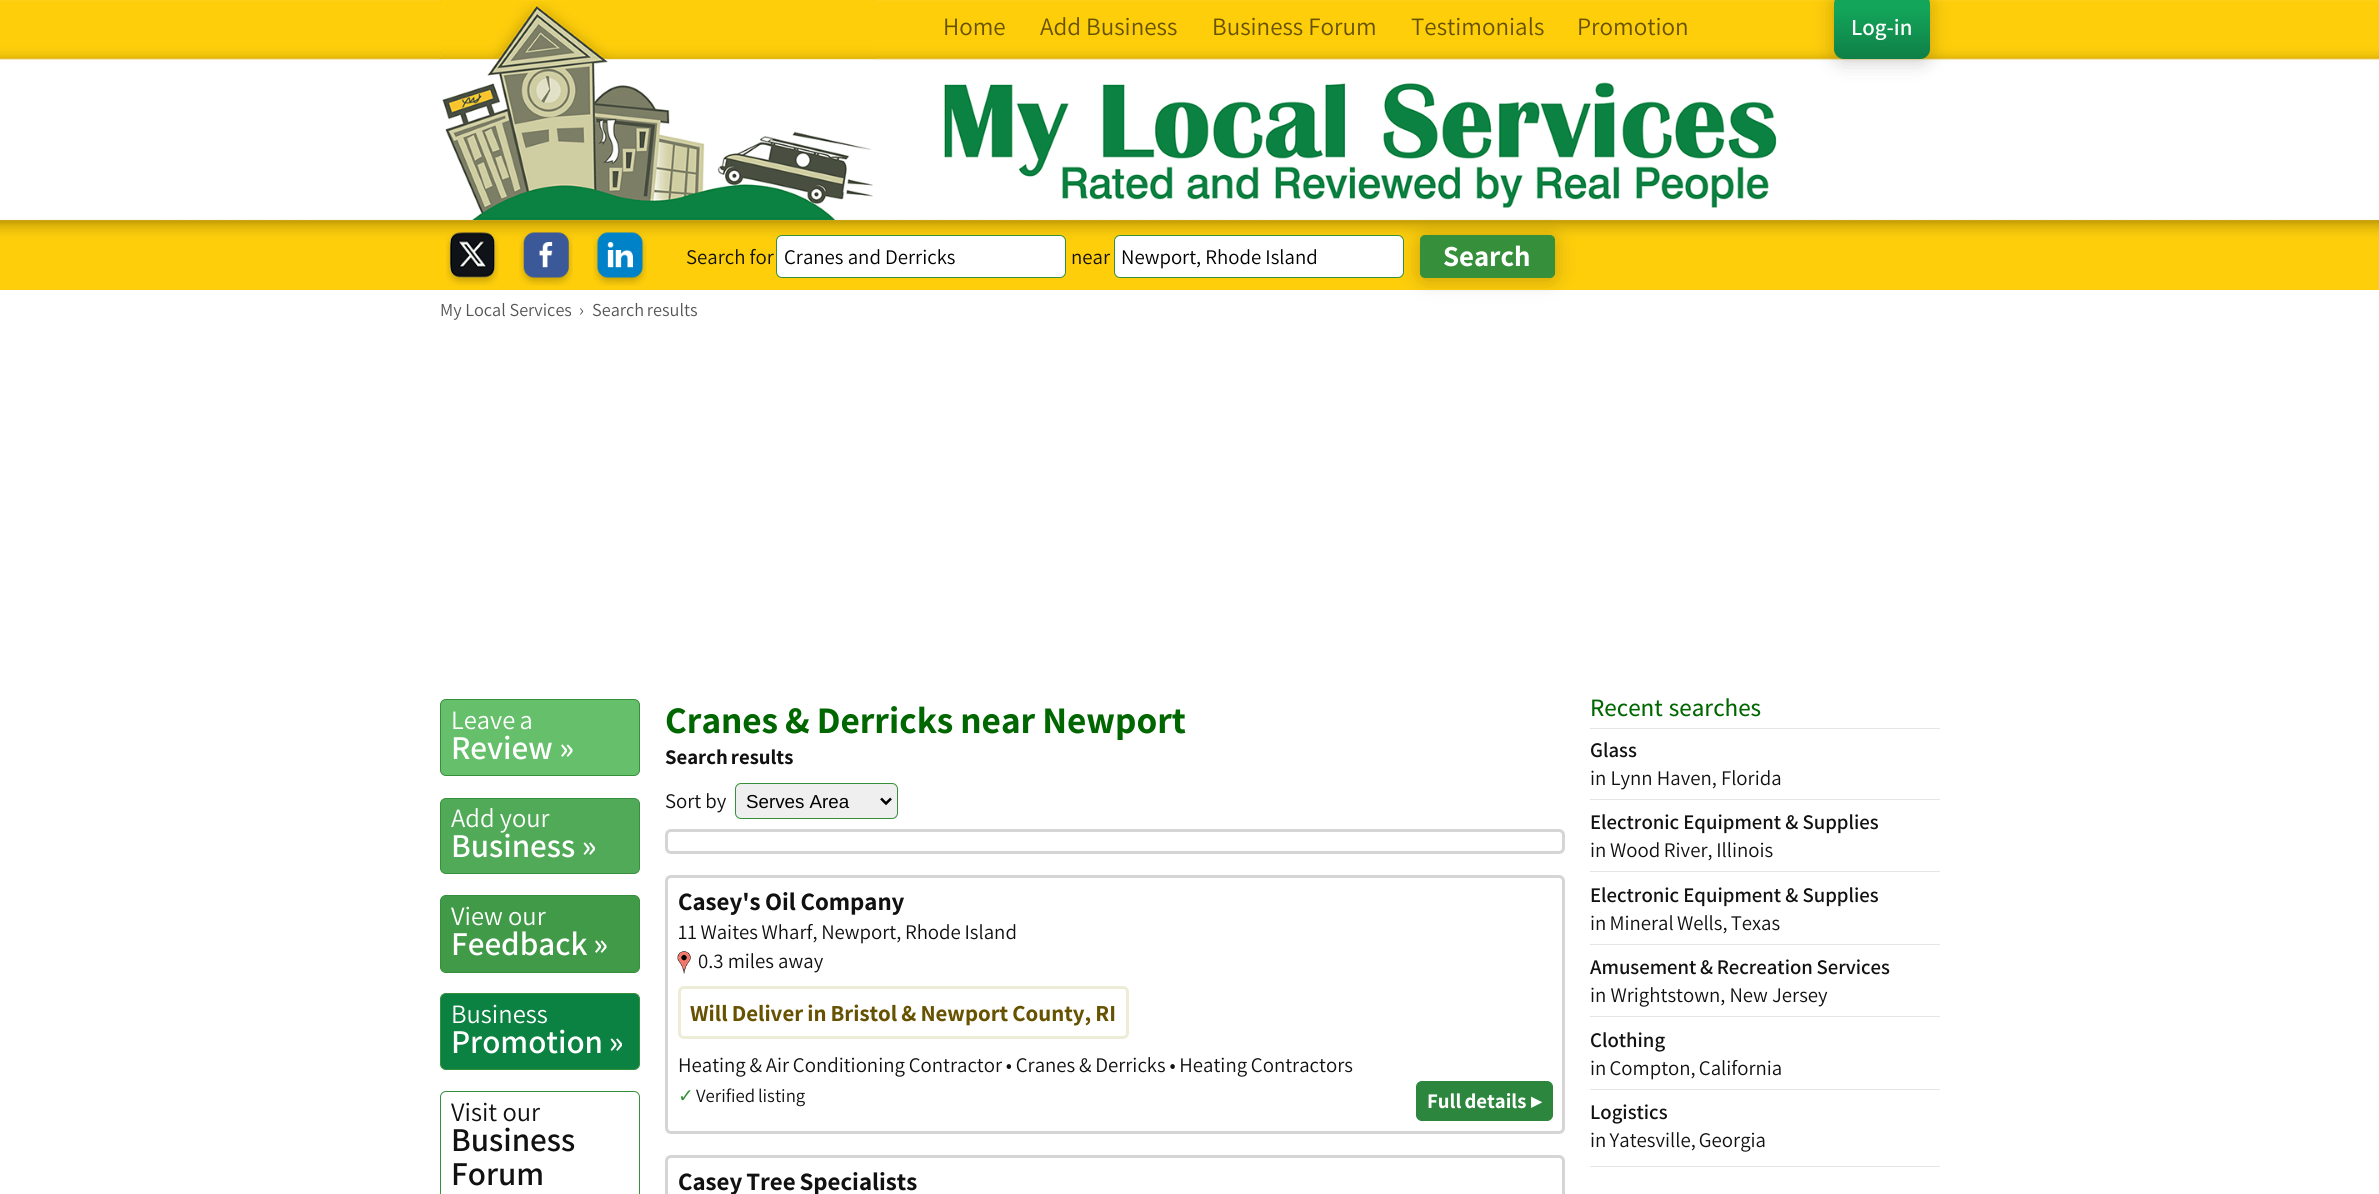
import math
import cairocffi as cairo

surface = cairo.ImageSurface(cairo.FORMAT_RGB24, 2379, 1194)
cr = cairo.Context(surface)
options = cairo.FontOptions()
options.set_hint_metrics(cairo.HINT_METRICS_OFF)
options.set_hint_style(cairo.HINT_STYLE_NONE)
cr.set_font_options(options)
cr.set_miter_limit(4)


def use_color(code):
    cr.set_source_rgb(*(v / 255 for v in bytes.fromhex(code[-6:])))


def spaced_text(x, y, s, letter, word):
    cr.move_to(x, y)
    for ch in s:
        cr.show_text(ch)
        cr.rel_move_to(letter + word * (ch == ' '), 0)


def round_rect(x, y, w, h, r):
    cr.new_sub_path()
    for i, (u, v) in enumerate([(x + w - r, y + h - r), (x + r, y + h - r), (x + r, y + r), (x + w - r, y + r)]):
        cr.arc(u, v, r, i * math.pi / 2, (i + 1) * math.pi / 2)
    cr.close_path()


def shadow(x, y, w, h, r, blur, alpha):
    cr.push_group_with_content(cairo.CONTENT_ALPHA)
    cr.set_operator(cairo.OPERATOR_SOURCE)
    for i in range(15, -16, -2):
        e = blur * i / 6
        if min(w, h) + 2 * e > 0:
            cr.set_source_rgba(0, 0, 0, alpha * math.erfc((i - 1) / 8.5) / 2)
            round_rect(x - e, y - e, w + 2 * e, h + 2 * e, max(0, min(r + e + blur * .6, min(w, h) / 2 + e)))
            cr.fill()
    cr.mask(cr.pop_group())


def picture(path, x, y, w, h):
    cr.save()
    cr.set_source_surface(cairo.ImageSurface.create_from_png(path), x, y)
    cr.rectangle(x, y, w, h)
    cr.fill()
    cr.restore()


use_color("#ffffff")
cr.paint()
picture("img1.png", 0, 0, 2379, 220)
picture("img2.png", 440, 0, 435, 220)
picture("img3.png", 944, 82, 833, 126)
cr.select_font_face("Assistant")
cr.set_font_size(25)
use_color("#665200")
cr.move_to(943, 35)
cr.show_text("Home")
cr.move_to(1040, 35)
cr.show_text("Add Business")
cr.move_to(1212, 35)
cr.show_text("Business Forum")
cr.move_to(1411, 35)
cr.show_text("Testimonials")
cr.move_to(1577, 35)
cr.show_text("Promotion")
use_color("#000000")
shadow(1834, -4, 96, 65, 10, 10, 0.22)
gradient = cairo.LinearGradient(1882, -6.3, 1882, 59)
gradient.add_color_stop_rgba(0, 0.075, 0.647, 0.353, 1)
gradient.add_color_stop_rgba(0.23, 0.075, 0.647, 0.353, 1)
gradient.add_color_stop_rgba(1, 0.059, 0.498, 0.275, 1)
cr.set_source(gradient)
round_rect(1834, -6, 96, 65, 10)
cr.fill()
cr.select_font_face("Assistant SemiBold")
cr.set_font_size(22.9)
use_color("#ffffff")
cr.move_to(1851, 35)
cr.show_text("Log-in")
picture("img4.png", 0, 220, 2379, 70)
picture("img5.png", 446, 232, 53, 54)
picture("img6.png", 519, 232, 54, 54)
picture("img7.png", 593, 232, 54, 54)
cr.select_font_face("Assistant")
cr.set_font_size(20.8)
use_color("#111111")
cr.move_to(686, 264)
cr.show_text("Search for")
use_color("#ffffff")
round_rect(776.5, 235.5, 289, 42, 5.5)
cr.fill_preserve()
use_color("#36903b")
cr.set_line_width(1)
cr.stroke()
use_color("#000000")
cr.move_to(784, 264)
cr.show_text("Cranes and Derricks")
use_color("#111111")
cr.move_to(1071, 264)
cr.show_text("near")
use_color("#ffffff")
round_rect(1114.5, 235.5, 289, 42, 5.5)
cr.fill_preserve()
use_color("#36903b")
cr.stroke()
use_color("#000000")
cr.move_to(1121, 264)
cr.show_text("Newport, Rhode Island")
use_color("#000000")
shadow(1420, 238, 135, 42, 5, 10, 0.22)
use_color("#36903b")
round_rect(1420.5, 235.5, 134, 42, 4.5)
cr.fill_preserve()
cr.stroke()
cr.select_font_face("Assistant", cairo.FONT_SLANT_NORMAL, cairo.FONT_WEIGHT_BOLD)
cr.set_font_size(29)
use_color("#ffffff")
cr.move_to(1443, 266)
cr.show_text("Search")
cr.select_font_face("Assistant")
cr.set_font_size(18.25)
use_color("#555555")
cr.move_to(440, 316)
cr.show_text("My Local Services")
cr.move_to(579, 316)
cr.show_text("›")
spaced_text(592, 316, "Search results", 0, -1)
use_color("#66c06b")
round_rect(440.5, 699.5, 199, 76, 5.5)
cr.fill_preserve()
use_color("#36903b")
cr.stroke()
cr.set_font_size(26.5)
use_color("#ffffff")
spaced_text(451, 729, "Leave a", 0, -1)
cr.select_font_face("Assistant SemiBold")
cr.set_font_size(33.25)
cr.move_to(451, 759)
cr.show_text("Review »")
use_color("#51aa57")
round_rect(440.5, 798.5, 199, 75, 5.5)
cr.fill_preserve()
use_color("#36903b")
cr.stroke()
cr.select_font_face("Assistant")
cr.set_font_size(26.5)
use_color("#ffffff")
cr.move_to(451, 827)
cr.show_text("Add your")
cr.select_font_face("Assistant SemiBold")
cr.set_font_size(33.25)
cr.move_to(451, 857)
cr.show_text("Business »")
use_color("#419a47")
round_rect(440.5, 895.5, 199, 77, 5.5)
cr.fill_preserve()
use_color("#36903b")
cr.stroke()
cr.select_font_face("Assistant")
cr.set_font_size(26.5)
use_color("#ffffff")
cr.move_to(451, 925)
cr.show_text("View our")
cr.select_font_face("Assistant SemiBold")
cr.set_font_size(33.25)
spaced_text(451, 955, "Feedback »", 0, -1)
use_color("#0b8142")
round_rect(440.5, 993.5, 199, 76, 5.5)
cr.fill_preserve()
use_color("#36903b")
cr.stroke()
cr.select_font_face("Assistant")
cr.set_font_size(26.5)
use_color("#ffffff")
cr.move_to(451, 1023)
cr.show_text("Business")
cr.select_font_face("Assistant SemiBold")
cr.set_font_size(33.25)
spaced_text(451, 1053, "Promotion »", 0, -1)
round_rect(440.5, 1091.5, 199, 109, 5.5)
use_color("#36903b")
cr.stroke()
cr.select_font_face("Assistant")
cr.set_font_size(26.5)
use_color("#111111")
cr.move_to(451, 1121)
cr.show_text("Visit our")
cr.select_font_face("Assistant SemiBold")
cr.set_font_size(33.25)
cr.move_to(451, 1151)
cr.show_text("Business")
cr.move_to(451, 1185)
cr.show_text("Forum")
cr.select_font_face("Assistant", cairo.FONT_SLANT_NORMAL, cairo.FONT_WEIGHT_BOLD)
cr.set_font_size(37.5)
use_color("#006600")
spaced_text(665, 733, "Cranes & Derricks near Newport", 0, -0.5)
cr.set_font_size(20.8)
use_color("#111111")
spaced_text(665, 764, "Search results", 0, -1)
cr.select_font_face("Assistant")
cr.move_to(665, 808)
cr.show_text("Sort by")
use_color("#efefef")
round_rect(735.5, 783.5, 162, 35, 5.5)
cr.fill_preserve()
use_color("#36903b")
cr.stroke()
cr.new_path()
cr.move_to(881, 798.5)
cr.line_to(886, 803.5)
cr.line_to(891, 798.5)
use_color("#000000")
cr.set_line_width(2.5)
cr.stroke()
cr.select_font_face("Liberation Sans")
cr.set_font_size(18.75)
cr.move_to(746, 808)
cr.show_text("Serves Area")
round_rect(666.5, 830.5, 897, 22, 4.5)
use_color("#d5d5d5")
cr.set_line_width(3)
cr.stroke()
round_rect(666.5, 876.5, 897, 256, 4.5)
cr.stroke()
cr.select_font_face("Assistant", cairo.FONT_SLANT_NORMAL, cairo.FONT_WEIGHT_BOLD)
cr.set_font_size(25)
use_color("#111111")
spaced_text(678, 910, "Casey's Oil Company", 0, -0.5)
cr.select_font_face("Assistant")
cr.set_font_size(20.8)
spaced_text(678, 939, "11 Waites Wharf, Newport, Rhode Island", 0, -0.5)
picture("img8.png", 677, 951, 14, 23)
cr.move_to(698, 968)
cr.show_text("0.3 miles away")
round_rect(679.5, 987.5, 448, 50, 4.5)
use_color("#edecd7")
cr.stroke()
cr.select_font_face("Assistant", cairo.FONT_SLANT_NORMAL, cairo.FONT_WEIGHT_BOLD)
cr.set_font_size(22.9)
use_color("#665200")
spaced_text(690, 1021, "Will Deliver in Bristol & Newport County, RI", 0, -0.5)
cr.select_font_face("Assistant")
cr.set_font_size(20.8)
use_color("#111111")
spaced_text(678, 1072, "Heating & Air Conditioning Contractor • Cranes & Derricks • Heating Contractors", 0, -0.4)
cr.select_font_face("DejaVu Sans")
cr.set_font_size(18.75)
use_color("#36903b")
cr.move_to(678, 1102)
cr.show_text("✓")
cr.select_font_face("Assistant")
use_color("#111111")
spaced_text(696, 1102, "Verified listing", 0, -1)
use_color("#2d863d")
round_rect(1416.5, 1081.5, 136, 39, 5.5)
cr.fill_preserve()
cr.set_line_width(1)
cr.stroke()
cr.select_font_face("Assistant", cairo.FONT_SLANT_NORMAL, cairo.FONT_WEIGHT_BOLD)
cr.set_font_size(20.8)
use_color("#ffffff")
spaced_text(1427, 1108, "Full details", 0, -1)
cr.select_font_face("DejaVu Sans", cairo.FONT_SLANT_NORMAL, cairo.FONT_WEIGHT_BOLD)
cr.move_to(1531, 1108)
cr.show_text("▸")
round_rect(666.5, 1156.5, 897, 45, 4.5)
use_color("#d5d5d5")
cr.set_line_width(3)
cr.stroke()
cr.select_font_face("Assistant", cairo.FONT_SLANT_NORMAL, cairo.FONT_WEIGHT_BOLD)
cr.set_font_size(25)
use_color("#111111")
spaced_text(678, 1190, "Casey Tree Specialists", 0, -1)
use_color("#e5e5e5")
cr.rectangle(1590, 1166, 350, 1)
cr.fill()
cr.select_font_face("Assistant Medium")
use_color("#006600")
spaced_text(1590, 716, "Recent searches", 0, 1)
use_color("#e5e5e5")
cr.rectangle(1590, 728, 350, 1)
cr.fill()
cr.select_font_face("Assistant SemiBold")
cr.set_font_size(20.8)
use_color("#111111")
cr.move_to(1590, 757)
cr.show_text("Glass")
cr.select_font_face("Assistant")
cr.move_to(1590, 785)
cr.show_text("in Lynn Haven, Florida")
use_color("#e5e5e5")
cr.rectangle(1590, 799, 350, 1)
cr.fill()
cr.select_font_face("Assistant SemiBold")
use_color("#111111")
cr.move_to(1590, 829)
cr.show_text("Electronic Equipment & Supplies")
cr.select_font_face("Assistant")
spaced_text(1590, 857, "in Wood River, Illinois", 0, -0.5)
use_color("#e5e5e5")
cr.rectangle(1590, 871, 350, 1)
cr.fill()
cr.select_font_face("Assistant SemiBold")
use_color("#111111")
cr.move_to(1590, 902)
cr.show_text("Electronic Equipment & Supplies")
cr.select_font_face("Assistant")
spaced_text(1590, 930, "in Mineral Wells, Texas", 0, -1)
use_color("#e5e5e5")
cr.rectangle(1590, 944, 350, 1)
cr.fill()
cr.select_font_face("Assistant SemiBold")
use_color("#111111")
spaced_text(1590, 974, "Amusement & Recreation Services", 0, -0.5)
cr.select_font_face("Assistant")
cr.move_to(1590, 1002)
cr.show_text("in Wrightstown, New Jersey")
use_color("#e5e5e5")
cr.rectangle(1590, 1016, 350, 1)
cr.fill()
cr.select_font_face("Assistant SemiBold")
use_color("#111111")
cr.move_to(1590, 1047)
cr.show_text("Clothing")
cr.select_font_face("Assistant")
spaced_text(1590, 1075, "in Compton, California", 0, -1)
use_color("#e5e5e5")
cr.rectangle(1590, 1089, 350, 1)
cr.fill()
cr.select_font_face("Assistant SemiBold")
use_color("#111111")
cr.move_to(1590, 1119)
cr.show_text("Logistics")
cr.select_font_face("Assistant")
spaced_text(1590, 1147, "in Yatesville, Georgia", 0, -1)
surface.write_to_png("result.png")
